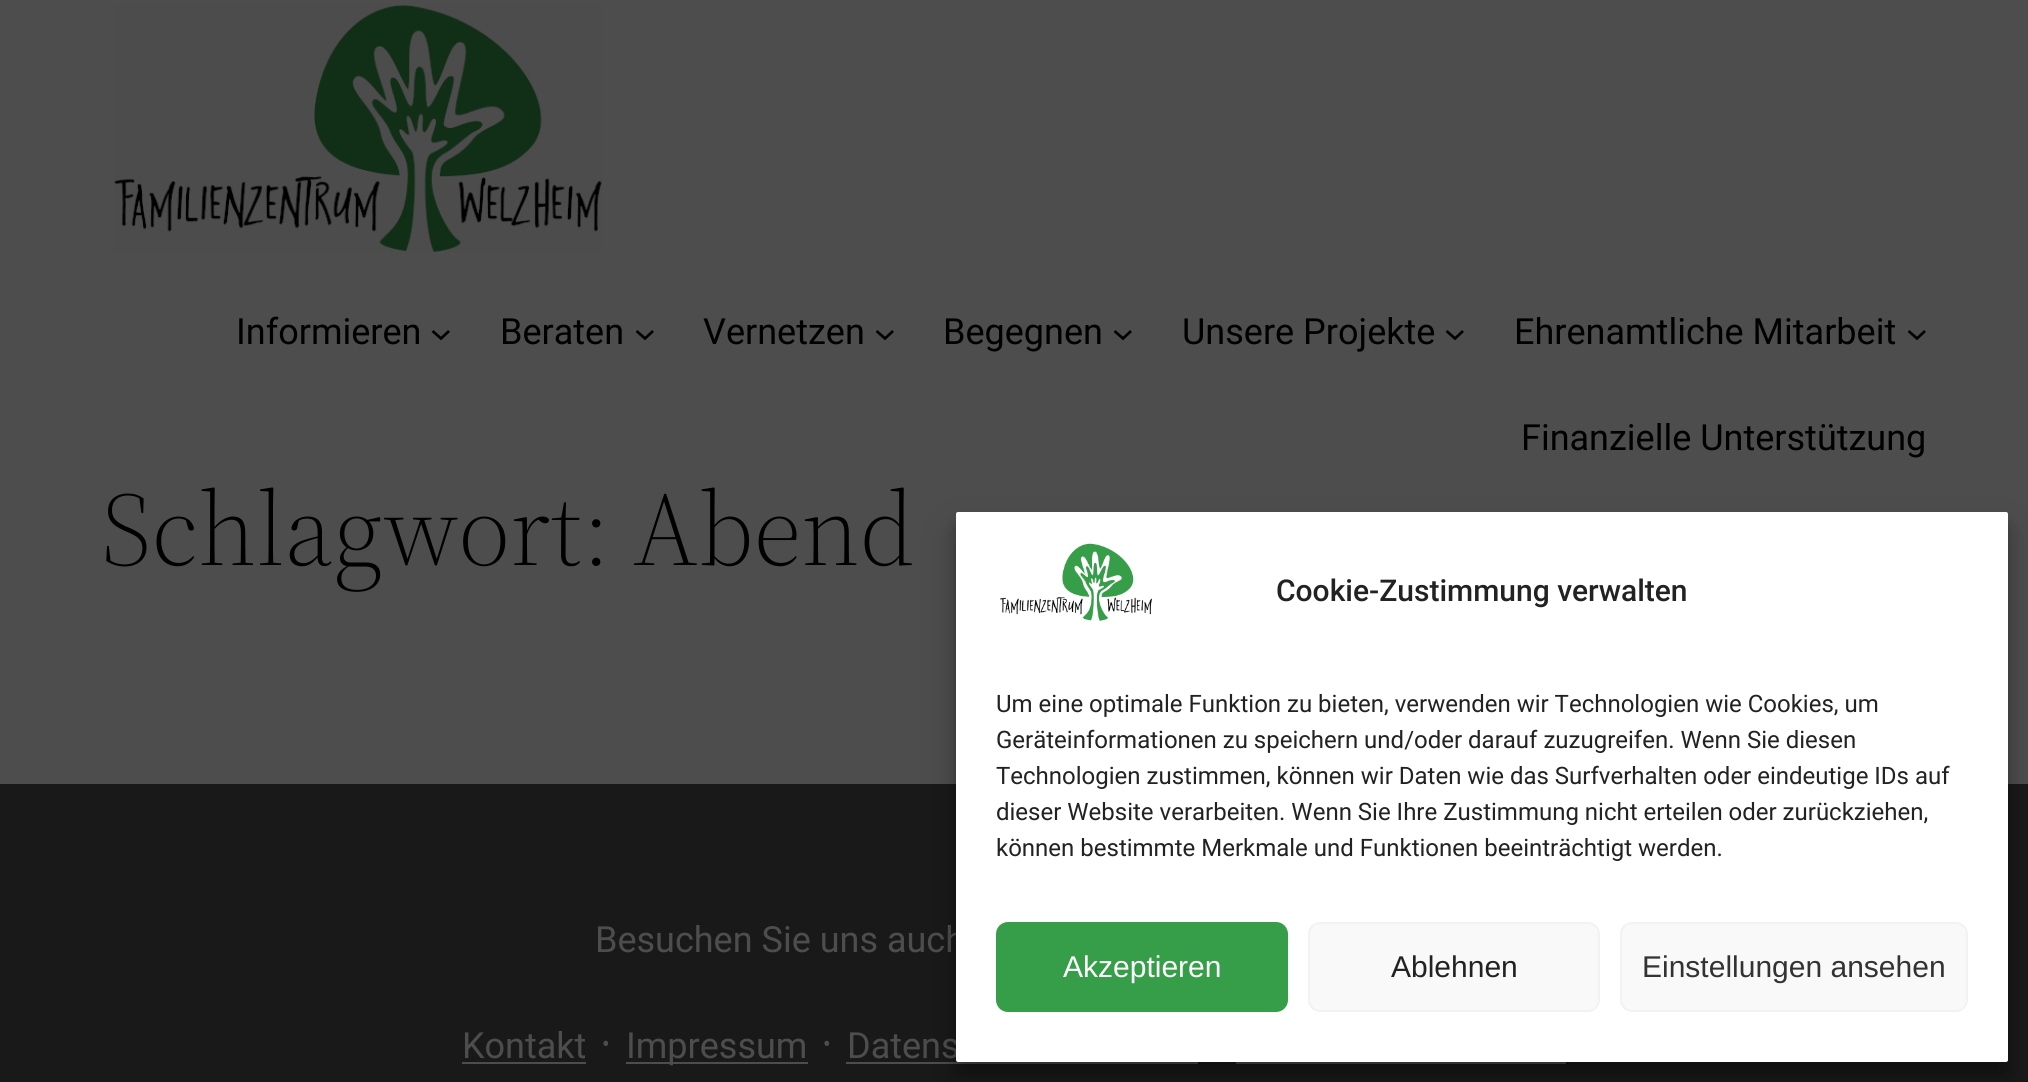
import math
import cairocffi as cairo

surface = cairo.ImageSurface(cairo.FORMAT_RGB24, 2028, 1082)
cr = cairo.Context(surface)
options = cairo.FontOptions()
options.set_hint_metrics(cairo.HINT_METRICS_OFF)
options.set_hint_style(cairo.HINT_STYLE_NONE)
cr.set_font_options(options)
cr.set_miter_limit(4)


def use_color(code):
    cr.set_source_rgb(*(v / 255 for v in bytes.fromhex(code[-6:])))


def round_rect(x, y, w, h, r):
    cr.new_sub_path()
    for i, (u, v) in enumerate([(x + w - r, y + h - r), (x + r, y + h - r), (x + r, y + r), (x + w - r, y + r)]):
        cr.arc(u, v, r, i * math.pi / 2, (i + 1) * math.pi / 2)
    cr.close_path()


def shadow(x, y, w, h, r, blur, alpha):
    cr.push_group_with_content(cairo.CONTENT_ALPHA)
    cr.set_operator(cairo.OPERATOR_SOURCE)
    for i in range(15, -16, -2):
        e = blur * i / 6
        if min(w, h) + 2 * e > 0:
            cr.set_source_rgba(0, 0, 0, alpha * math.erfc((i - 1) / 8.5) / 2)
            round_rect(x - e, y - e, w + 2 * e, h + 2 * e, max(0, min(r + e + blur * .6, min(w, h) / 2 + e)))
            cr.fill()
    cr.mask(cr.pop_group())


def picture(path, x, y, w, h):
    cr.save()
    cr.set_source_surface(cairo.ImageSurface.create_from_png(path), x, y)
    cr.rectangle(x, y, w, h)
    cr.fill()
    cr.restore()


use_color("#4d4d4d")
cr.paint()
picture("img1.png", 114, 5, 488, 247)
cr.select_font_face("Roboto")
cr.set_font_size(36)
use_color("#000000")
cr.move_to(236, 344)
cr.show_text("Informieren")
cr.new_path()
cr.move_to(432.5, 331)
cr.line_to(441, 338.5)
cr.line_to(449, 331)
cr.set_line_width(2.7)
cr.stroke()
cr.move_to(500, 344)
cr.show_text("Beraten")
cr.new_path()
cr.move_to(636.5, 331)
cr.line_to(645, 338.5)
cr.line_to(653, 331)
cr.stroke()
cr.move_to(703, 344)
cr.show_text("Vernetzen")
cr.new_path()
cr.move_to(876.5, 331)
cr.line_to(885, 338.5)
cr.line_to(893, 331)
cr.stroke()
cr.move_to(943, 344)
cr.show_text("Begegnen")
cr.new_path()
cr.move_to(1114.5, 331)
cr.line_to(1123, 338.5)
cr.line_to(1131, 331)
cr.stroke()
cr.move_to(1182, 344)
cr.show_text("Unsere Projekte")
cr.new_path()
cr.move_to(1446.5, 331)
cr.line_to(1455, 338.5)
cr.line_to(1463, 331)
cr.stroke()
cr.move_to(1514, 344)
cr.show_text("Ehrenamtliche Mitarbeit")
cr.new_path()
cr.move_to(1908.5, 331)
cr.line_to(1917, 338.5)
cr.line_to(1925, 331)
cr.stroke()
cr.move_to(1521, 450)
cr.show_text("Finanzielle Unterstützung")
cr.select_font_face("Source Serif 4 Light")
cr.set_font_size(104)
cr.move_to(101, 565)
cr.show_text("Schlagwort: Abend")
use_color("#191919")
cr.rectangle(0, 784, 2028, 298)
cr.fill()
cr.select_font_face("Roboto")
cr.set_font_size(36)
use_color("#4d4d4d")
cr.move_to(595, 952)
cr.show_text("Besuchen Sie uns auch")
cr.move_to(462, 1058)
cr.show_text("Kontakt")
cr.rectangle(462, 1062, 124, 2)
cr.fill()
cr.select_font_face("FreeMono")
cr.move_to(595, 1058)
cr.show_text("᛫")
cr.rectangle(626, 1062, 182, 2)
cr.fill()
cr.select_font_face("Roboto")
cr.move_to(626, 1058)
cr.show_text("Impressum")
cr.select_font_face("FreeMono")
cr.move_to(816, 1058)
cr.show_text("᛫")
cr.select_font_face("Roboto")
cr.move_to(847, 1058)
cr.show_text("Datens")
cr.rectangle(846, 1062, 352, 2)
cr.fill()
cr.rectangle(1236, 1062, 330, 2)
cr.fill()
use_color("#000000")
shadow(956, 524, 1052, 550, 2, 6, 0.23)
shadow(956, 532, 1052, 550, 2, 20, 0.19)
use_color("#ffffff")
round_rect(956, 512, 1052, 550, 2)
cr.fill()
picture("img2.png", 1000, 543, 152, 78)
cr.select_font_face("Roboto Medium")
cr.set_font_size(30)
use_color("#222222")
cr.move_to(1276, 601)
cr.show_text("Cookie-Zustimmung verwalten")
cr.select_font_face("Roboto")
cr.set_font_size(24)
cr.move_to(996, 712)
cr.show_text("Um eine optimale Funktion zu bieten, verwenden wir Technologien wie Cookies, um")
cr.move_to(996, 748)
cr.show_text("Geräteinformationen zu speichern und/oder darauf zuzugreifen. Wenn Sie diesen")
cr.move_to(996, 784)
cr.show_text("Technologien zustimmen, können wir Daten wie das Surfverhalten oder eindeutige IDs auf")
cr.move_to(996, 820)
cr.show_text("dieser Website verarbeiten. Wenn Sie Ihre Zustimmung nicht erteilen oder zurückziehen,")
cr.move_to(996, 856)
cr.show_text("können bestimmte Merkmale und Funktionen beeinträchtigt werden.")
use_color("#369d49")
round_rect(997, 923, 290, 88, 11)
cr.fill_preserve()
cr.set_line_width(2)
cr.stroke()
cr.select_font_face("Liberation Sans")
cr.set_font_size(30)
use_color("#ffffff")
cr.move_to(1063, 977)
cr.show_text("Akzeptieren")
use_color("#f9f9f9")
round_rect(1309, 923, 290, 88, 11)
cr.fill_preserve()
use_color("#f2f2f2")
cr.stroke()
use_color("#222222")
cr.move_to(1391, 977)
cr.show_text("Ablehnen")
use_color("#f9f9f9")
round_rect(1621, 923, 346, 88, 11)
cr.fill_preserve()
use_color("#f2f2f2")
cr.stroke()
use_color("#333333")
cr.move_to(1642, 977)
cr.show_text("Einstellungen ansehen")
surface.write_to_png("result.png")
